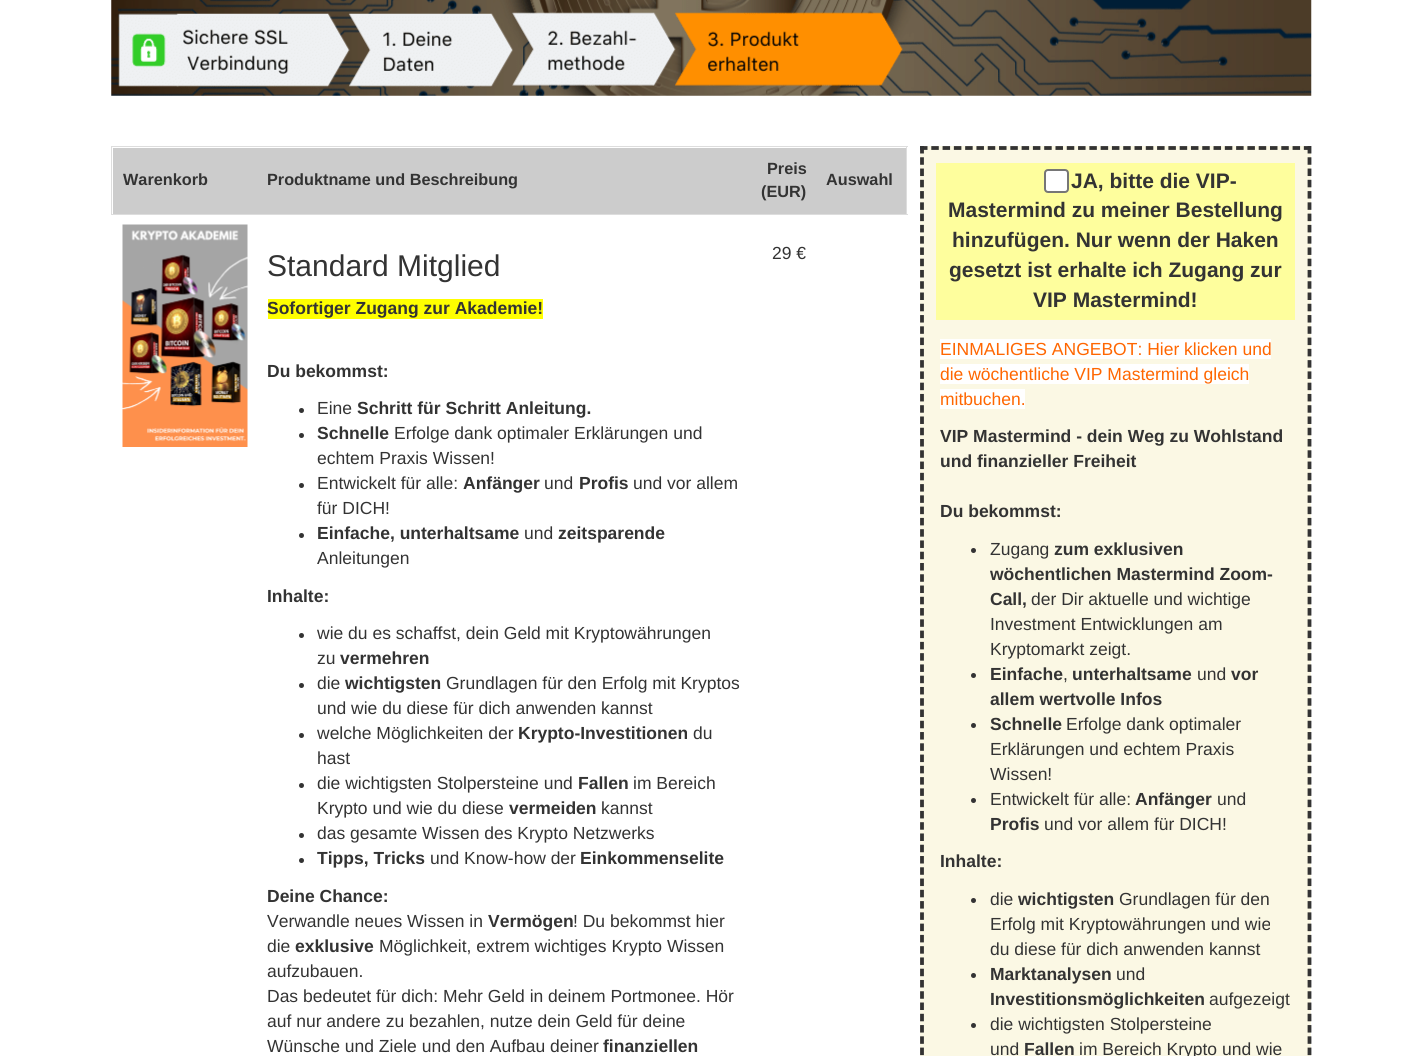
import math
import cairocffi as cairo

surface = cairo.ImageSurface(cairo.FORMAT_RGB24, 1422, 1056)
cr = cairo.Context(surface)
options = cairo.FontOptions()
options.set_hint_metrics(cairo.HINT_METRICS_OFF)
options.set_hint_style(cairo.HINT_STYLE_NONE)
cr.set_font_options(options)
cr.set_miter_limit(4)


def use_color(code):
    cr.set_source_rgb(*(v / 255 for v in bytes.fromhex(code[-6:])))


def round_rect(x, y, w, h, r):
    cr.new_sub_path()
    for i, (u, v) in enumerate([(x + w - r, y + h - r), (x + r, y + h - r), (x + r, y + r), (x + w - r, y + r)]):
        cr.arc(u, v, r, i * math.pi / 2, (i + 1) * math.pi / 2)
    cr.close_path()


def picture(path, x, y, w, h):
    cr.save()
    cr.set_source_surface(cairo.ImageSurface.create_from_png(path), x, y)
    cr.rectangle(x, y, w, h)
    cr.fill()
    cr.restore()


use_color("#ffffff")
cr.paint()
picture("img1.png", 111, 0, 1201, 96)
use_color("#cccccc")
cr.rectangle(113, 148, 793, 66)
cr.fill()
use_color("#dddddd")
cr.rectangle(111, 146, 797, 1)
cr.fill()
cr.rectangle(906, 146, 1, 69)
cr.fill()
cr.rectangle(111, 146, 1, 69)
cr.fill()
cr.select_font_face("Liberation Sans", cairo.FONT_SLANT_NORMAL, cairo.FONT_WEIGHT_BOLD)
cr.set_font_size(16.25)
use_color("#333333")
cr.move_to(123, 185)
cr.show_text("Warenkorb")
cr.move_to(267, 185)
cr.show_text("Produktname und Beschreibung")
cr.move_to(767, 174)
cr.show_text("Preis")
cr.move_to(761, 197)
cr.show_text("(EUR)")
cr.move_to(826, 185)
cr.show_text("Auswahl")
use_color("#dddddd")
cr.rectangle(111, 214, 797, 1)
cr.fill()
picture("img2.png", 122, 224, 126, 223)
cr.select_font_face("Liberation Sans")
cr.set_font_size(30)
use_color("#333333")
cr.move_to(267, 276)
cr.show_text("Standard Mitglied")
use_color("#ffff00")
cr.rectangle(268, 299, 275, 20)
cr.fill()
cr.select_font_face("Liberation Sans", cairo.FONT_SLANT_NORMAL, cairo.FONT_WEIGHT_BOLD)
cr.set_font_size(17.5)
use_color("#333333")
cr.move_to(267, 314)
cr.show_text("Sofortiger Zugang zur Akademie!")
cr.move_to(267, 377)
cr.show_text("Du bekommst:")
cr.new_path()
cr.arc(301.5, 410.5, 2.5, 0, 2 * math.pi)
cr.fill()
cr.select_font_face("Liberation Sans")
cr.move_to(317, 414)
cr.show_text("Eine")
cr.select_font_face("Liberation Sans", cairo.FONT_SLANT_NORMAL, cairo.FONT_WEIGHT_BOLD)
cr.move_to(357, 414)
cr.show_text("Schritt für Schritt Anleitung.")
cr.new_path()
cr.arc(301.5, 435.5, 2.5, 0, 2 * math.pi)
cr.fill()
cr.move_to(317, 439)
cr.show_text("Schnelle")
cr.select_font_face("Liberation Sans")
cr.move_to(394, 439)
cr.show_text("Erfolge dank optimaler Erklärungen und")
cr.move_to(317, 464)
cr.show_text("echtem Praxis Wissen!")
cr.new_path()
cr.arc(301.5, 485.5, 2.5, 0, 2 * math.pi)
cr.fill()
cr.move_to(317, 489)
cr.show_text("Entwickelt für alle:")
cr.select_font_face("Liberation Sans", cairo.FONT_SLANT_NORMAL, cairo.FONT_WEIGHT_BOLD)
cr.move_to(463, 489)
cr.show_text("Anfänger")
cr.select_font_face("Liberation Sans")
cr.move_to(544, 489)
cr.show_text("und")
cr.select_font_face("Liberation Sans", cairo.FONT_SLANT_NORMAL, cairo.FONT_WEIGHT_BOLD)
cr.move_to(579, 489)
cr.show_text("Profis")
cr.select_font_face("Liberation Sans")
cr.move_to(633, 489)
cr.show_text("und vor allem")
cr.move_to(317, 514)
cr.show_text("für DICH!")
cr.new_path()
cr.arc(301.5, 535.5, 2.5, 0, 2 * math.pi)
cr.fill()
cr.select_font_face("Liberation Sans", cairo.FONT_SLANT_NORMAL, cairo.FONT_WEIGHT_BOLD)
cr.move_to(317, 539)
cr.show_text("Einfache, unterhaltsame")
cr.select_font_face("Liberation Sans")
cr.move_to(524, 539)
cr.show_text("und")
cr.select_font_face("Liberation Sans", cairo.FONT_SLANT_NORMAL, cairo.FONT_WEIGHT_BOLD)
cr.move_to(558, 539)
cr.show_text("zeitsparende")
cr.select_font_face("Liberation Sans")
cr.move_to(317, 564)
cr.show_text("Anleitungen")
cr.select_font_face("Liberation Sans", cairo.FONT_SLANT_NORMAL, cairo.FONT_WEIGHT_BOLD)
cr.move_to(267, 602)
cr.show_text("Inhalte:")
cr.new_path()
cr.arc(301.5, 635.5, 2.5, 0, 2 * math.pi)
cr.fill()
cr.select_font_face("Liberation Sans")
cr.move_to(317, 639)
cr.show_text("wie du es schaffst, dein Geld mit Kryptowährungen")
cr.move_to(317, 664)
cr.show_text("zu")
cr.select_font_face("Liberation Sans", cairo.FONT_SLANT_NORMAL, cairo.FONT_WEIGHT_BOLD)
cr.move_to(340, 664)
cr.show_text("vermehren")
cr.new_path()
cr.arc(301.5, 685.5, 2.5, 0, 2 * math.pi)
cr.fill()
cr.select_font_face("Liberation Sans")
cr.move_to(317, 689)
cr.show_text("die")
cr.select_font_face("Liberation Sans", cairo.FONT_SLANT_NORMAL, cairo.FONT_WEIGHT_BOLD)
cr.move_to(345, 689)
cr.show_text("wichtigsten")
cr.select_font_face("Liberation Sans")
cr.move_to(446, 689)
cr.show_text("Grundlagen für den Erfolg mit Kryptos")
cr.move_to(317, 714)
cr.show_text("und wie du diese für dich anwenden kannst")
cr.new_path()
cr.arc(301.5, 735.5, 2.5, 0, 2 * math.pi)
cr.fill()
cr.move_to(317, 739)
cr.show_text("welche Möglichkeiten der")
cr.select_font_face("Liberation Sans", cairo.FONT_SLANT_NORMAL, cairo.FONT_WEIGHT_BOLD)
cr.move_to(518, 739)
cr.show_text("Krypto-Investitionen")
cr.select_font_face("Liberation Sans")
cr.move_to(693, 739)
cr.show_text("du")
cr.move_to(317, 764)
cr.show_text("hast")
cr.new_path()
cr.arc(301.5, 785.5, 2.5, 0, 2 * math.pi)
cr.fill()
cr.move_to(317, 789)
cr.show_text("die wichtigsten Stolpersteine und")
cr.select_font_face("Liberation Sans", cairo.FONT_SLANT_NORMAL, cairo.FONT_WEIGHT_BOLD)
cr.move_to(578, 789)
cr.show_text("Fallen")
cr.select_font_face("Liberation Sans")
cr.move_to(633, 789)
cr.show_text("im Bereich")
cr.move_to(317, 814)
cr.show_text("Krypto und wie du diese")
cr.select_font_face("Liberation Sans", cairo.FONT_SLANT_NORMAL, cairo.FONT_WEIGHT_BOLD)
cr.move_to(509, 814)
cr.show_text("vermeiden")
cr.select_font_face("Liberation Sans")
cr.move_to(601, 814)
cr.show_text("kannst")
cr.new_path()
cr.arc(301.5, 835.5, 2.5, 0, 2 * math.pi)
cr.fill()
cr.move_to(317, 839)
cr.show_text("das gesamte Wissen des Krypto Netzwerks")
cr.new_path()
cr.arc(301.5, 860.5, 2.5, 0, 2 * math.pi)
cr.fill()
cr.select_font_face("Liberation Sans", cairo.FONT_SLANT_NORMAL, cairo.FONT_WEIGHT_BOLD)
cr.move_to(317, 864)
cr.show_text("Tipps, Tricks")
cr.select_font_face("Liberation Sans")
cr.move_to(430, 864)
cr.show_text("und Know-how der")
cr.select_font_face("Liberation Sans", cairo.FONT_SLANT_NORMAL, cairo.FONT_WEIGHT_BOLD)
cr.move_to(580, 864)
cr.show_text("Einkommenselite")
cr.move_to(267, 902)
cr.show_text("Deine Chance:")
cr.select_font_face("Liberation Sans")
cr.move_to(267, 927)
cr.show_text("Verwandle neues Wissen in")
cr.select_font_face("Liberation Sans", cairo.FONT_SLANT_NORMAL, cairo.FONT_WEIGHT_BOLD)
cr.move_to(488, 927)
cr.show_text("Vermögen")
cr.select_font_face("Liberation Sans")
cr.move_to(573, 927)
cr.show_text("! Du bekommst hier")
cr.move_to(267, 952)
cr.show_text("die")
cr.select_font_face("Liberation Sans", cairo.FONT_SLANT_NORMAL, cairo.FONT_WEIGHT_BOLD)
cr.move_to(295, 952)
cr.show_text("exklusive")
cr.select_font_face("Liberation Sans")
cr.move_to(379, 952)
cr.show_text("Möglichkeit, extrem wichtiges Krypto Wissen")
cr.move_to(267, 977)
cr.show_text("aufzubauen.")
cr.move_to(267, 1002)
cr.show_text("Das bedeutet für dich: Mehr Geld in deinem Portmonee. Hör")
cr.move_to(267, 1027)
cr.show_text("auf nur andere zu bezahlen, nutze dein Geld für deine")
cr.move_to(267, 1052)
cr.show_text("Wünsche und Ziele und den Aufbau deiner")
cr.select_font_face("Liberation Sans", cairo.FONT_SLANT_NORMAL, cairo.FONT_WEIGHT_BOLD)
cr.move_to(603, 1052)
cr.show_text("finanziellen")
cr.select_font_face("Liberation Sans")
cr.move_to(772, 259)
cr.show_text("29 €")
use_color("#fbf8e4")
cr.rectangle(920, 146, 391, 910)
cr.fill()
cr.new_path()
cr.move_to(920, 148)
cr.line_to(1311, 148)
use_color("#333333")
cr.set_line_width(3.8)
cr.set_dash([7.5, 3.79])
cr.stroke()
cr.new_path()
cr.move_to(1309.5, 146)
cr.line_to(1309.5, 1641)
cr.set_dash([7.5, 3.77])
cr.stroke()
cr.new_path()
cr.move_to(922, 146)
cr.line_to(922, 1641)
cr.stroke()
use_color("#fefe9d")
cr.rectangle(936, 163, 359, 157)
cr.fill()
use_color("#ffffff")
round_rect(1045, 170, 23, 22, 3)
cr.fill_preserve()
use_color("#767676")
cr.set_line_width(2)
cr.set_dash([])
cr.stroke()
cr.select_font_face("Liberation Sans", cairo.FONT_SLANT_NORMAL, cairo.FONT_WEIGHT_BOLD)
cr.set_font_size(21)
use_color("#333333")
cr.move_to(1071, 188)
cr.show_text("JA, bitte die VIP-")
cr.move_to(948, 217)
cr.show_text("Mastermind zu meiner Bestellung")
cr.move_to(952, 247)
cr.show_text("hinzufügen. Nur wenn der Haken")
cr.move_to(949, 277)
cr.show_text("gesetzt ist erhalte ich Zugang zur")
cr.move_to(1033, 307)
cr.show_text("VIP Mastermind!")
use_color("#ffffff")
cr.rectangle(940, 339, 331, 20)
cr.fill()
cr.select_font_face("Liberation Sans")
cr.set_font_size(17.5)
use_color("#ff6600")
cr.move_to(940, 355)
cr.show_text("EINMALIGES ANGEBOT: Hier klicken und")
use_color("#ffffff")
cr.rectangle(940, 364, 309, 20)
cr.fill()
use_color("#ff6600")
cr.move_to(940, 380)
cr.show_text("die wöchentliche VIP Mastermind gleich")
use_color("#ffffff")
cr.rectangle(940, 389, 85, 20)
cr.fill()
use_color("#ff6600")
cr.move_to(940, 405)
cr.show_text("mitbuchen.")
cr.select_font_face("Liberation Sans", cairo.FONT_SLANT_NORMAL, cairo.FONT_WEIGHT_BOLD)
use_color("#333333")
cr.move_to(940, 442)
cr.show_text("VIP Mastermind - dein Weg zu Wohlstand")
cr.move_to(940, 467)
cr.show_text("und finanzieller Freiheit")
cr.move_to(940, 517)
cr.show_text("Du bekommst:")
cr.new_path()
cr.arc(973.5, 550.5, 2.5, 0, 2 * math.pi)
cr.fill()
cr.select_font_face("Liberation Sans")
cr.move_to(990, 555)
cr.show_text("Zugang")
cr.select_font_face("Liberation Sans", cairo.FONT_SLANT_NORMAL, cairo.FONT_WEIGHT_BOLD)
cr.move_to(1054, 555)
cr.show_text("zum exklusiven")
cr.move_to(990, 580)
cr.show_text("wöchentlichen Mastermind Zoom-")
cr.move_to(990, 605)
cr.show_text("Call,")
cr.select_font_face("Liberation Sans")
cr.move_to(1031, 605)
cr.show_text("der Dir aktuelle und wichtige")
cr.move_to(990, 630)
cr.show_text("Investment Entwicklungen am")
cr.move_to(990, 655)
cr.show_text("Kryptomarkt zeigt.")
cr.new_path()
cr.arc(973.5, 675.5, 2.5, 0, 2 * math.pi)
cr.fill()
cr.select_font_face("Liberation Sans", cairo.FONT_SLANT_NORMAL, cairo.FONT_WEIGHT_BOLD)
cr.move_to(990, 680)
cr.show_text("Einfache")
cr.move_to(1072, 680)
cr.show_text("unterhaltsame")
cr.select_font_face("Liberation Sans")
cr.move_to(1197, 680)
cr.show_text("und")
cr.select_font_face("Liberation Sans", cairo.FONT_SLANT_NORMAL, cairo.FONT_WEIGHT_BOLD)
cr.move_to(1231, 680)
cr.show_text("vor")
cr.select_font_face("Liberation Sans")
cr.move_to(1063, 680)
cr.show_text(",")
cr.select_font_face("Liberation Sans", cairo.FONT_SLANT_NORMAL, cairo.FONT_WEIGHT_BOLD)
cr.move_to(990, 705)
cr.show_text("allem wertvolle Infos")
cr.new_path()
cr.arc(973.5, 725.5, 2.5, 0, 2 * math.pi)
cr.fill()
cr.move_to(990, 730)
cr.show_text("Schnelle")
cr.select_font_face("Liberation Sans")
cr.move_to(1066, 730)
cr.show_text("Erfolge dank optimaler")
cr.move_to(990, 755)
cr.show_text("Erklärungen und echtem Praxis")
cr.move_to(990, 780)
cr.show_text("Wissen!")
cr.new_path()
cr.arc(973.5, 800.5, 2.5, 0, 2 * math.pi)
cr.fill()
cr.move_to(990, 805)
cr.show_text("Entwickelt für alle:")
cr.select_font_face("Liberation Sans", cairo.FONT_SLANT_NORMAL, cairo.FONT_WEIGHT_BOLD)
cr.move_to(1135, 805)
cr.show_text("Anfänger")
cr.select_font_face("Liberation Sans")
cr.move_to(1217, 805)
cr.show_text("und")
cr.select_font_face("Liberation Sans", cairo.FONT_SLANT_NORMAL, cairo.FONT_WEIGHT_BOLD)
cr.move_to(990, 830)
cr.show_text("Profis")
cr.select_font_face("Liberation Sans")
cr.move_to(1044, 830)
cr.show_text("und vor allem für DICH!")
cr.select_font_face("Liberation Sans", cairo.FONT_SLANT_NORMAL, cairo.FONT_WEIGHT_BOLD)
cr.move_to(940, 867)
cr.show_text("Inhalte:")
cr.new_path()
cr.arc(973.5, 900.5, 2.5, 0, 2 * math.pi)
cr.fill()
cr.select_font_face("Liberation Sans")
cr.move_to(990, 905)
cr.show_text("die")
cr.select_font_face("Liberation Sans", cairo.FONT_SLANT_NORMAL, cairo.FONT_WEIGHT_BOLD)
cr.move_to(1018, 905)
cr.show_text("wichtigsten")
cr.select_font_face("Liberation Sans")
cr.move_to(1119, 905)
cr.show_text("Grundlagen für den")
cr.move_to(990, 930)
cr.show_text("Erfolg mit Kryptowährungen und wie")
cr.move_to(990, 955)
cr.show_text("du diese für dich anwenden kannst")
cr.new_path()
cr.arc(973.5, 975.5, 2.5, 0, 2 * math.pi)
cr.fill()
cr.select_font_face("Liberation Sans", cairo.FONT_SLANT_NORMAL, cairo.FONT_WEIGHT_BOLD)
cr.move_to(990, 980)
cr.show_text("Marktanalysen")
cr.select_font_face("Liberation Sans")
cr.move_to(1116, 980)
cr.show_text("und")
cr.select_font_face("Liberation Sans", cairo.FONT_SLANT_NORMAL, cairo.FONT_WEIGHT_BOLD)
cr.move_to(990, 1005)
cr.show_text("Investitionsmöglichkeiten")
cr.select_font_face("Liberation Sans")
cr.move_to(1209, 1005)
cr.show_text("aufgezeigt")
cr.new_path()
cr.arc(973.5, 1025.5, 2.5, 0, 2 * math.pi)
cr.fill()
cr.move_to(990, 1030)
cr.show_text("die wichtigsten Stolpersteine")
cr.move_to(990, 1055)
cr.show_text("und")
cr.select_font_face("Liberation Sans", cairo.FONT_SLANT_NORMAL, cairo.FONT_WEIGHT_BOLD)
cr.move_to(1024, 1055)
cr.show_text("Fallen")
cr.select_font_face("Liberation Sans")
cr.move_to(1079, 1055)
cr.show_text("im Bereich Krypto und wie")
surface.write_to_png("result.png")
